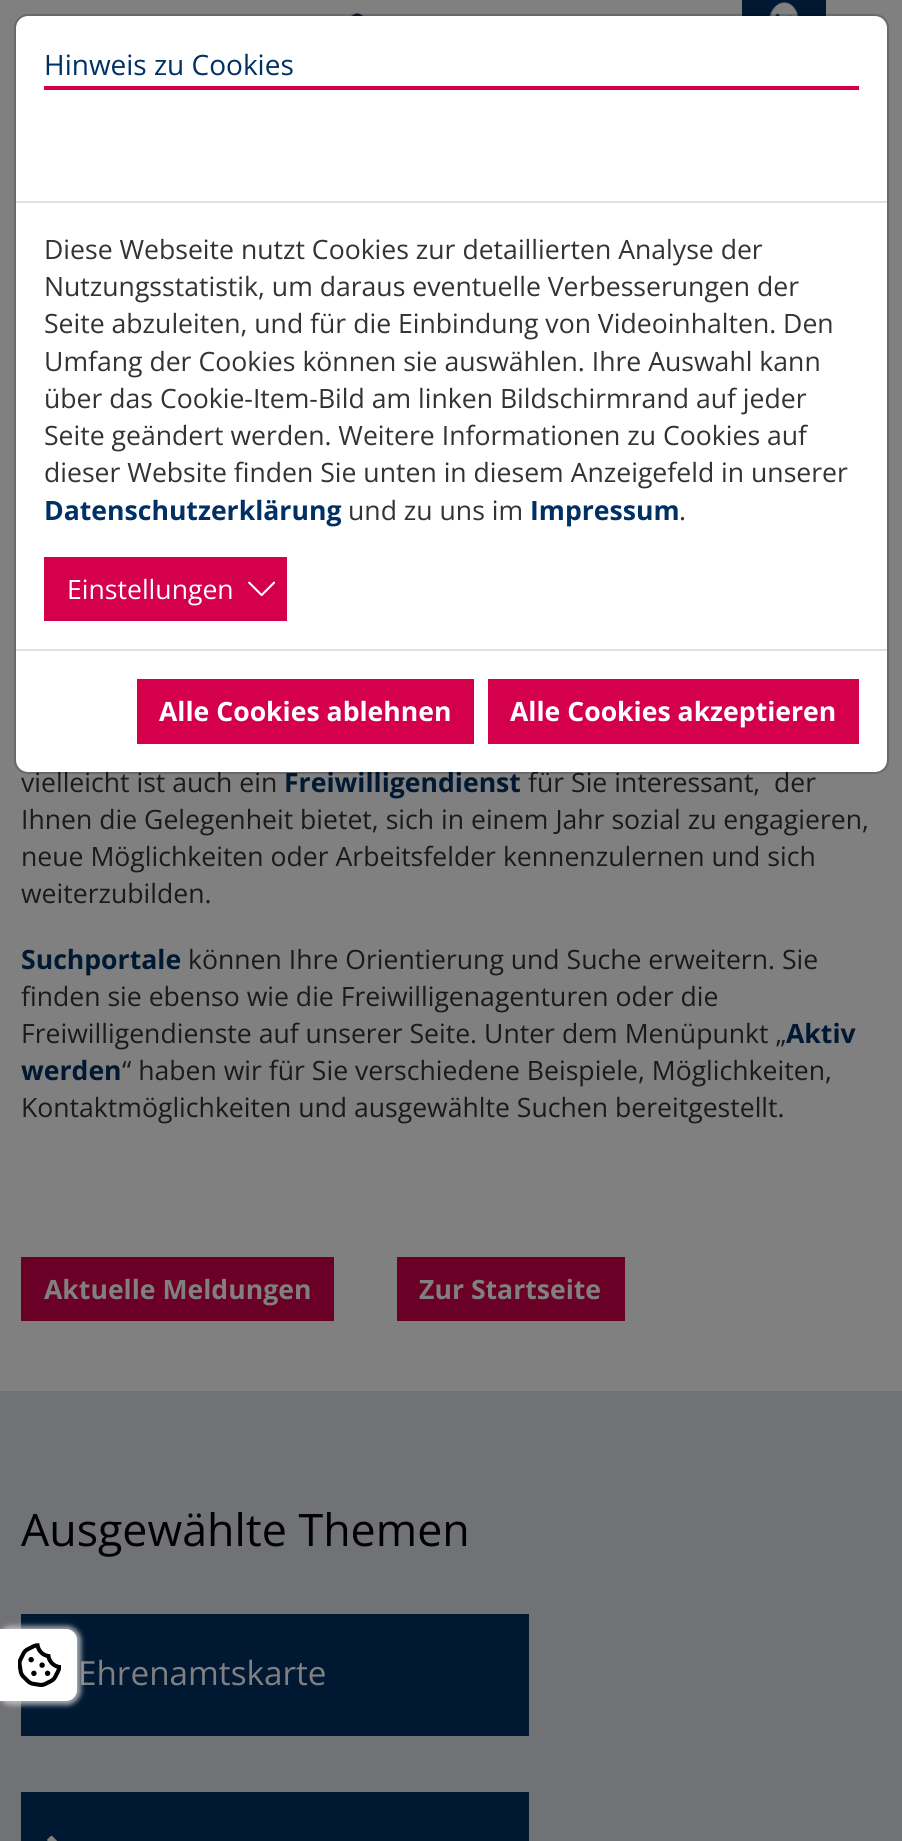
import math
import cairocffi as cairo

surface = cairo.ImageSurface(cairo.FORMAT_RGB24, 902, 1841)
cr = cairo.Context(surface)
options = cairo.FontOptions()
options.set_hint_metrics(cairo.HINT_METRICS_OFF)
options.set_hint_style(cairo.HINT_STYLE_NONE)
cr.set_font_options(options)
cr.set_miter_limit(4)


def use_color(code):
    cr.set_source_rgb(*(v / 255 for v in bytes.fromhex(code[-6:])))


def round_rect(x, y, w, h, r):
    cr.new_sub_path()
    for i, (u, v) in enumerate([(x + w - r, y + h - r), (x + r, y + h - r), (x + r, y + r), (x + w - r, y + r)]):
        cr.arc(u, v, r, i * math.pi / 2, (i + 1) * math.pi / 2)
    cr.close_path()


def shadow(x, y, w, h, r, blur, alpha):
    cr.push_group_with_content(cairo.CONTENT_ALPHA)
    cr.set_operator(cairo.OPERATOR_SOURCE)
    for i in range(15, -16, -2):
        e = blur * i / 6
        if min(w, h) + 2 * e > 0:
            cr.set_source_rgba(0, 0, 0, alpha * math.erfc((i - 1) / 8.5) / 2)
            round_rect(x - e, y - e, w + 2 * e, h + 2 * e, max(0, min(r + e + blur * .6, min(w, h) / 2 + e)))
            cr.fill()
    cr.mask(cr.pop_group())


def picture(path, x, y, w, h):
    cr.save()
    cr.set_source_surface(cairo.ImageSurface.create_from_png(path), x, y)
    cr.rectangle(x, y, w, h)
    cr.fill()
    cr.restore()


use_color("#808080")
cr.paint()
cr.select_font_face("Open Sans")
cr.set_font_size(26.6)
use_color("#1a1a1a")
cr.move_to(21, 792)
cr.show_text("vielleicht ist auch ein")
cr.select_font_face("Open Sans", cairo.FONT_SLANT_NORMAL, cairo.FONT_WEIGHT_BOLD)
use_color("#001832")
cr.move_to(284, 792)
cr.show_text("Freiwilligendienst")
cr.select_font_face("Open Sans")
use_color("#1a1a1a")
cr.move_to(528, 792)
cr.show_text("für Sie interessant,  der")
use_color("#ffffff")
round_rect(16, 16, 871, 756, 12)
cr.fill()
picture("img2.png", 49, 15, 139, 1)
picture("img3.png", 201, 12, 189, 4)
picture("img4.png", 742, 0, 84, 16)
round_rect(15, 15, 873, 758, 13)
cr.set_source_rgba(0, 0, 0, 0.18)
cr.stroke()
use_color("#dee2e6")
cr.rectangle(16, 201, 871, 2)
cr.fill()
use_color("#d4004b")
cr.rectangle(44, 86, 815, 4)
cr.fill()
cr.set_font_size(28)
use_color("#003064")
cr.move_to(44, 75)
cr.show_text("Hinweis zu Cookies")
cr.set_font_size(26.6)
use_color("#333333")
cr.move_to(44, 259)
cr.show_text("Diese Webseite nutzt Cookies zur detaillierten Analyse der")
cr.move_to(44, 296)
cr.show_text("Nutzungsstatistik, um daraus eventuelle Verbesserungen der")
cr.move_to(44, 333)
cr.show_text("Seite abzuleiten, und für die Einbindung von Videoinhalten. Den")
cr.move_to(44, 371)
cr.show_text("Umfang der Cookies können sie auswählen. Ihre Auswahl kann")
cr.move_to(44, 408)
cr.show_text("über das Cookie-Item-Bild am linken Bildschirmrand auf jeder")
cr.move_to(44, 445)
cr.show_text("Seite geändert werden. Weitere Informationen zu Cookies auf")
cr.move_to(44, 482)
cr.show_text("dieser Website finden Sie unten in diesem Anzeigefeld in unserer")
cr.select_font_face("Open Sans", cairo.FONT_SLANT_NORMAL, cairo.FONT_WEIGHT_BOLD)
use_color("#003064")
cr.move_to(44, 520)
cr.show_text("Datenschutzerklärung")
cr.select_font_face("Open Sans")
use_color("#333333")
cr.move_to(348, 520)
cr.show_text("und zu uns im")
cr.select_font_face("Open Sans", cairo.FONT_SLANT_NORMAL, cairo.FONT_WEIGHT_BOLD)
use_color("#003064")
cr.move_to(530, 520)
cr.show_text("Impressum")
cr.select_font_face("Open Sans")
use_color("#333333")
cr.move_to(679, 520)
cr.show_text(".")
use_color("#d4004b")
cr.rectangle(44, 557, 243, 64)
cr.fill()
use_color("#ffffff")
cr.move_to(67, 599)
cr.show_text("Einstellungen")
picture("img1.png", 248, 581, 28, 16)
use_color("#dee2e6")
cr.rectangle(16, 649, 871, 2)
cr.fill()
use_color("#d4004b")
cr.rectangle(137, 679, 337, 65)
cr.fill()
cr.select_font_face("Open Sans", cairo.FONT_SLANT_NORMAL, cairo.FONT_WEIGHT_BOLD)
use_color("#ffffff")
cr.move_to(159, 721)
cr.show_text("Alle Cookies ablehnen")
use_color("#d4004b")
cr.rectangle(488, 679, 371, 65)
cr.fill()
use_color("#ffffff")
cr.move_to(510, 721)
cr.show_text("Alle Cookies akzeptieren")
cr.select_font_face("Open Sans")
use_color("#1a1a1a")
cr.move_to(21, 829)
cr.show_text("Ihnen die Gelegenheit bietet, sich in einem Jahr sozial zu engagieren,")
cr.move_to(21, 866)
cr.show_text("neue Möglichkeiten oder Arbeitsfelder kennenzulernen und sich")
cr.move_to(21, 903)
cr.show_text("weiterzubilden.")
cr.select_font_face("Open Sans", cairo.FONT_SLANT_NORMAL, cairo.FONT_WEIGHT_BOLD)
use_color("#001832")
cr.move_to(21, 969)
cr.show_text("Suchportale")
cr.select_font_face("Open Sans")
use_color("#1a1a1a")
cr.move_to(188, 969)
cr.show_text("können Ihre Orientierung und Suche erweitern. Sie")
cr.move_to(21, 1006)
cr.show_text("finden sie ebenso wie die Freiwilligenagenturen oder die")
cr.move_to(21, 1043)
cr.show_text("Freiwilligendienste auf unserer Seite. Unter dem Menüpunkt „")
cr.select_font_face("Open Sans", cairo.FONT_SLANT_NORMAL, cairo.FONT_WEIGHT_BOLD)
use_color("#001832")
cr.move_to(786, 1043)
cr.show_text("Aktiv")
cr.move_to(21, 1080)
cr.show_text("werden")
cr.select_font_face("Open Sans")
use_color("#1a1a1a")
cr.move_to(122, 1080)
cr.show_text("“ haben wir für Sie verschiedene Beispiele, Möglichkeiten,")
cr.move_to(21, 1117)
cr.show_text("Kontaktmöglichkeiten und ausgewählte Suchen bereitgestellt.")
use_color("#6a0026")
cr.rectangle(21, 1257, 313, 64)
cr.fill()
cr.select_font_face("Open Sans", cairo.FONT_SLANT_NORMAL, cairo.FONT_WEIGHT_BOLD)
use_color("#808080")
cr.move_to(44, 1299)
cr.show_text("Aktuelle Meldungen")
use_color("#6a0026")
cr.rectangle(397, 1257, 228, 64)
cr.fill()
use_color("#808080")
cr.move_to(419, 1299)
cr.show_text("Zur Startseite")
use_color("#717276")
cr.rectangle(0, 1391, 902, 450)
cr.fill()
cr.select_font_face("Open Sans")
cr.set_font_size(44.75)
use_color("#000000")
cr.move_to(21, 1546)
cr.show_text("Ausgewählte Themen")
use_color("#001832")
cr.rectangle(21, 1614, 508, 122)
cr.fill()
cr.set_font_size(33.25)
use_color("#808080")
cr.move_to(78, 1685)
cr.show_text("Ehrenamtskarte")
use_color("#001832")
cr.rectangle(21, 1792, 508, 49)
cr.fill()
picture("img5.png", 47, 1835, 10, 6)
use_color("#cccccc")
shadow(-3, 1626, 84, 79, 14, 2.5, 0.8)
use_color("#ffffff")
cr.new_path()
cr.move_to(0, 1629)
cr.line_to(66, 1629)
cr.curve_to(72, 1629, 77, 1634, 77, 1640)
cr.line_to(77, 1690)
cr.curve_to(77, 1696, 72, 1701, 66, 1701)
cr.line_to(0, 1701)
cr.close_path()
cr.fill()
picture("img6.png", 18, 1643, 43, 44)
surface.write_to_png("result.png")
